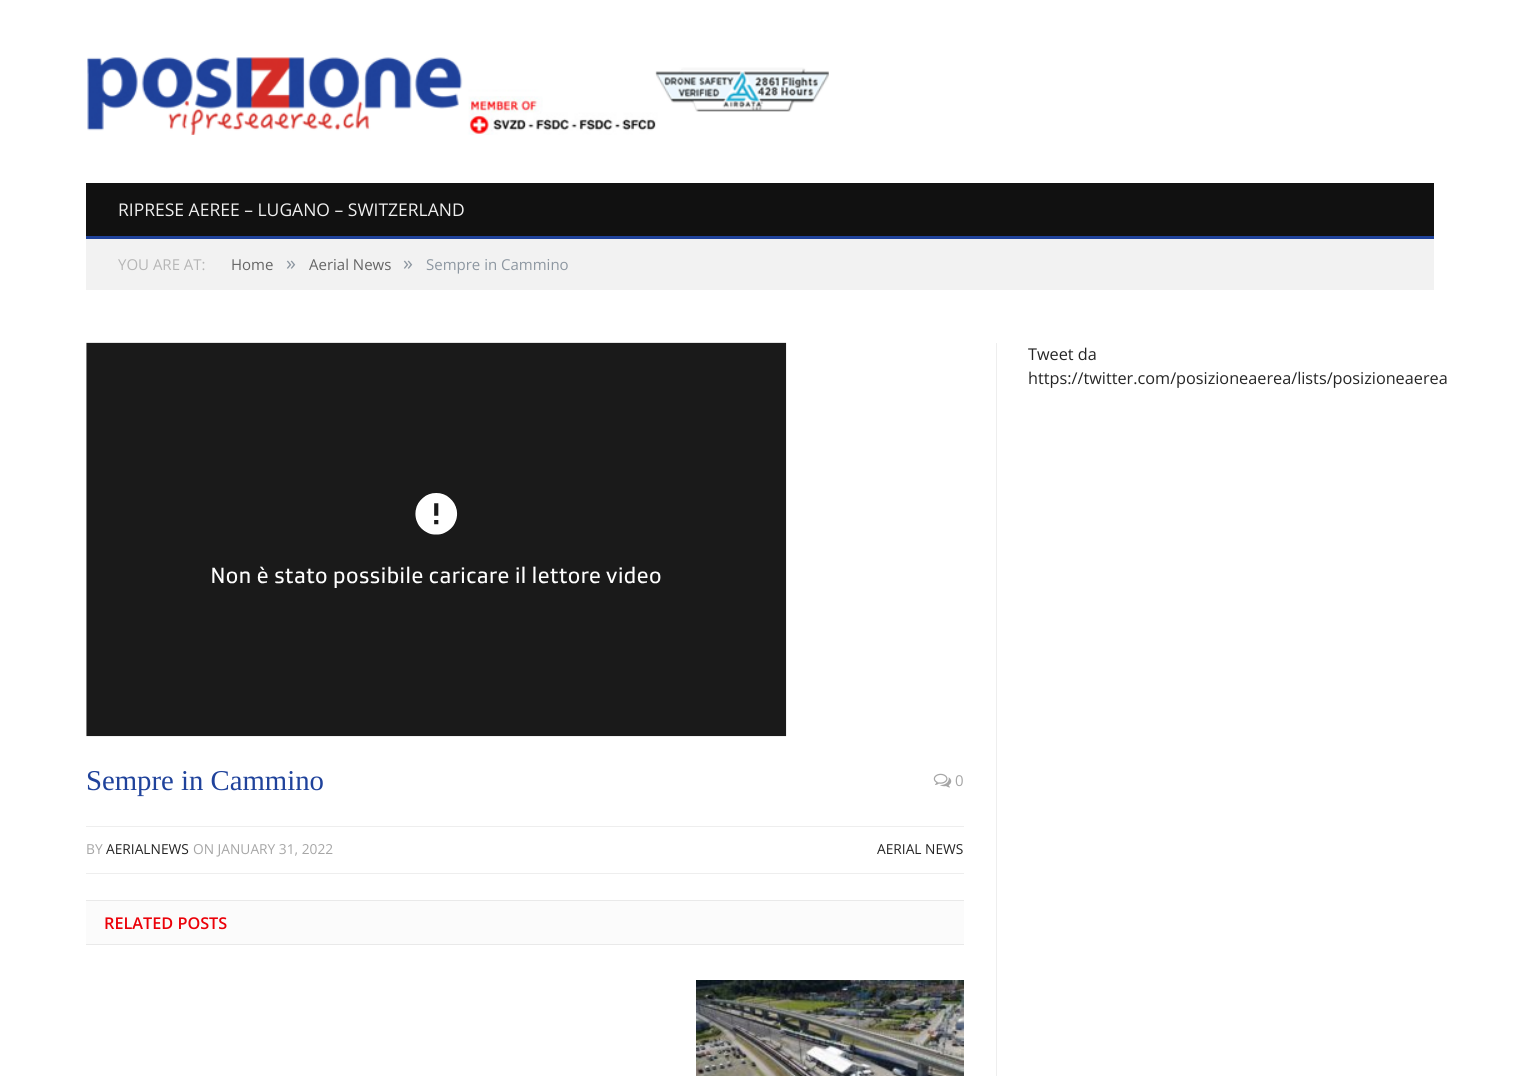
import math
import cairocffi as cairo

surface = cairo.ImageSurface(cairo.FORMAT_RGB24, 1520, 1076)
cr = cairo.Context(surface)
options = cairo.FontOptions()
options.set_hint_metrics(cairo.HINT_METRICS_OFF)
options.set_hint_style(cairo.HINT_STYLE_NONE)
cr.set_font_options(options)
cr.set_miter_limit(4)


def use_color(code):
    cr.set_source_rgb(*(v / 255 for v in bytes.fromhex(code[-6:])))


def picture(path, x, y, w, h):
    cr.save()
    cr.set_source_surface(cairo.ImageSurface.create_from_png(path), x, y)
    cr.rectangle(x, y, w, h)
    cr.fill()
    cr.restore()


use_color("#ffffff")
cr.paint()
picture("img1.png", 87, 57, 742, 78)
use_color("#111111")
cr.rectangle(86, 183, 1348, 53)
cr.fill()
use_color("#1f429b")
cr.rectangle(86, 236, 1348, 3)
cr.fill()
cr.select_font_face("Open Sans")
cr.set_font_size(17.5)
use_color("#efefef")
cr.move_to(118, 216)
cr.show_text("RIPRESE AEREE – LUGANO – SWITZERLAND")
use_color("#f2f2f2")
cr.rectangle(86, 239, 1348, 51)
cr.fill()
cr.set_font_size(15)
use_color("#b6b6b6")
cr.move_to(118, 270)
cr.show_text("YOU ARE AT:")
use_color("#656565")
cr.move_to(231, 270)
cr.show_text("Home")
cr.set_font_size(20)
use_color("#8d97a1")
cr.move_to(286, 270)
cr.show_text("»")
cr.set_font_size(15)
use_color("#656565")
cr.move_to(309, 270)
cr.show_text("Aerial News")
cr.set_font_size(20)
use_color("#8d97a1")
cr.move_to(403, 270)
cr.show_text("»")
cr.set_font_size(15)
cr.move_to(426, 270)
cr.show_text("Sempre in Cammino")
use_color("#eeeeee")
cr.rectangle(996, 343, 1, 733)
cr.fill()
cr.set_font_size(16.25)
use_color("#252525")
cr.move_to(1028, 360)
cr.show_text("Tweet da")
cr.move_to(1028, 384)
cr.show_text("https://twitter.com/posizioneaerea/lists/posizioneaerea")
picture("img2.png", 86, 342, 701, 395)
cr.select_font_face("Liberation Serif")
cr.set_font_size(28.75)
use_color("#1f429b")
cr.move_to(86, 790)
cr.show_text("Sempre in Cammino")
picture("img3.png", 933, 773, 19, 15)
cr.select_font_face("Open Sans")
cr.set_font_size(15)
use_color("#a6a6a6")
cr.move_to(955, 786)
cr.show_text("0")
use_color("#eeeeee")
cr.rectangle(86, 826, 878, 1)
cr.fill()
cr.rectangle(86, 873, 878, 1)
cr.fill()
cr.set_font_size(13.75)
use_color("#a6a6a6")
cr.move_to(86, 854)
cr.show_text("BY")
use_color("#252525")
cr.move_to(106, 854)
cr.show_text("AERIALNEWS")
use_color("#a6a6a6")
cr.move_to(193, 854)
cr.show_text("ON JANUARY 31, 2022")
use_color("#252525")
cr.move_to(877, 854)
cr.show_text("AERIAL NEWS")
use_color("#fbfbfb")
cr.rectangle(86, 901, 878, 43)
cr.fill()
use_color("#e9e9e9")
cr.rectangle(86, 900, 878, 1)
cr.fill()
cr.rectangle(86, 944, 878, 1)
cr.fill()
cr.select_font_face("Open Sans SemiBold")
cr.set_font_size(16.25)
use_color("#eb0008")
cr.move_to(104, 929)
cr.show_text("RELATED POSTS")
picture("img4.png", 696, 980, 268, 96)
surface.write_to_png("result.png")
